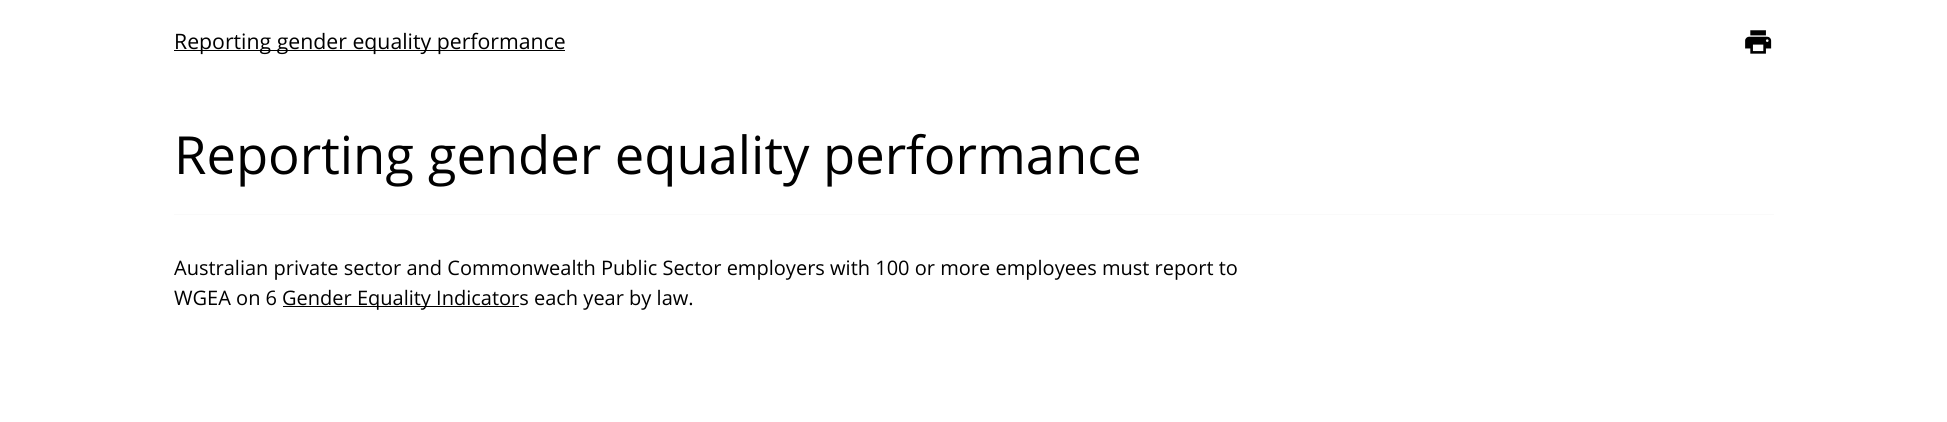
import math
import cairocffi as cairo

surface = cairo.ImageSurface(cairo.FORMAT_RGB24, 1947, 422)
cr = cairo.Context(surface)
options = cairo.FontOptions()
options.set_hint_metrics(cairo.HINT_METRICS_OFF)
options.set_hint_style(cairo.HINT_STYLE_NONE)
cr.set_font_options(options)
cr.set_miter_limit(4)


def use_color(code):
    cr.set_source_rgb(*(v / 255 for v in bytes.fromhex(code[-6:])))


def picture(path, x, y, w, h):
    cr.save()
    cr.set_source_surface(cairo.ImageSurface.create_from_png(path), x, y)
    cr.rectangle(x, y, w, h)
    cr.fill()
    cr.restore()


use_color("#ffffff")
cr.paint()
use_color("#000000")
cr.rectangle(174, 50, 391, 1)
cr.fill()
cr.select_font_face("Open Sans")
cr.set_font_size(21.25)
cr.move_to(174, 49)
cr.show_text("Reporting gender equality performance")
picture("img1.png", 1745, 30, 27, 24)
use_color("#fafafa")
cr.rectangle(174, 214, 1600, 1)
cr.fill()
cr.set_font_size(52.5)
use_color("#000000")
cr.move_to(174, 174)
cr.show_text("Reporting gender equality performance")
cr.set_font_size(20)
cr.move_to(174, 275)
cr.show_text("Australian private sector and Commonwealth Public Sector employers with 100 or more employees must report to")
cr.move_to(174, 305)
cr.show_text("WGEA on 6")
cr.rectangle(283, 306, 236, 1)
cr.fill()
cr.move_to(282, 305)
cr.show_text("Gender Equality Indicators each year by law.")
surface.write_to_png("result.png")
